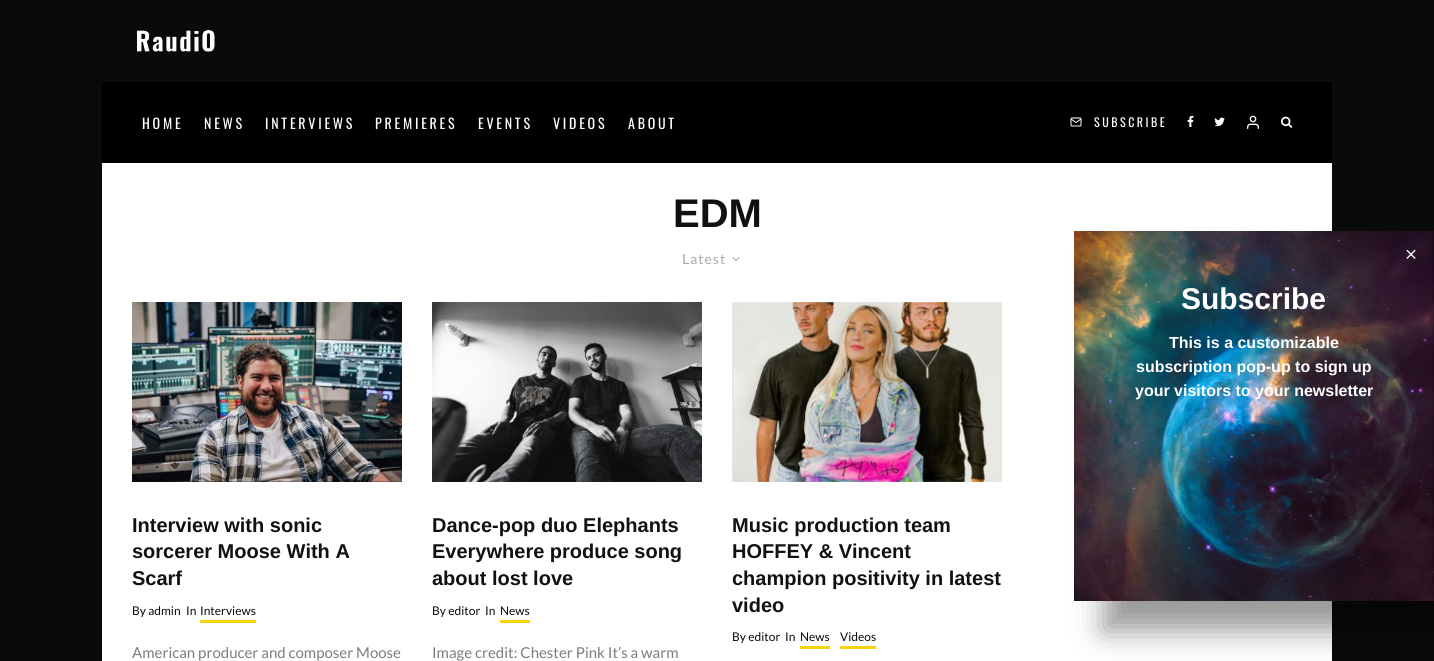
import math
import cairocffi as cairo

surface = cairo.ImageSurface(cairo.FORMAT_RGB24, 1434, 661)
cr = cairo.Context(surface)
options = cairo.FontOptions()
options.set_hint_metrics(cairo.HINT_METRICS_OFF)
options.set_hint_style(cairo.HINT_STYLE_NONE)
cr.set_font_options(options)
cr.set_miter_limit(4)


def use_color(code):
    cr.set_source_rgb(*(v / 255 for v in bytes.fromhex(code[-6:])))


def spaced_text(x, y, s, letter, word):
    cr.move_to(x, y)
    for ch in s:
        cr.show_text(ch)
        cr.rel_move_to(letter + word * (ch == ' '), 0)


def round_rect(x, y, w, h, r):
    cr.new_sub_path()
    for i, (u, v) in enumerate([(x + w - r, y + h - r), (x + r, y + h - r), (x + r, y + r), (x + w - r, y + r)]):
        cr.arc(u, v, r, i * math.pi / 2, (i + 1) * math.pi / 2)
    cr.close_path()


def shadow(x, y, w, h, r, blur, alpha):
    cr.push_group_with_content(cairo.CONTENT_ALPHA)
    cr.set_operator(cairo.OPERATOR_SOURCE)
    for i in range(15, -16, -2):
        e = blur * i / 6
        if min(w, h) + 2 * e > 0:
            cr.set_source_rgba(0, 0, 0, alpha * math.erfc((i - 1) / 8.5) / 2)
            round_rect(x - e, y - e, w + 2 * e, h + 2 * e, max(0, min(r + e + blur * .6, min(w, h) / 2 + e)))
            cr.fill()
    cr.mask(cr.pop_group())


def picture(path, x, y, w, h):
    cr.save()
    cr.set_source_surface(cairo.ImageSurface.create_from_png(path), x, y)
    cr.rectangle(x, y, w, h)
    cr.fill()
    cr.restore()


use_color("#0a0a0a")
cr.paint()
picture("img1.png", 137, 30, 78, 22)
use_color("#000000")
cr.rectangle(102, 82, 1230, 81)
cr.fill()
cr.select_font_face("Oswald")
cr.set_font_size(14)
use_color("#ffffff")
spaced_text(142, 129, "HOME", 2.75, 0)
spaced_text(204, 129, "NEWS", 2.75, 0)
spaced_text(265, 129, "INTERVIEWS", 2.75, 0)
spaced_text(375, 129, "PREMIERES", 2.75, 0)
spaced_text(478, 129, "EVENTS", 2.75, 0)
spaced_text(553, 129, "VIDEOS", 2.75, 0)
spaced_text(628, 129, "ABOUT", 2.75, 0)
picture("img2.png", 1070, 117, 12, 10)
cr.set_font_size(12)
spaced_text(1094, 127, "SUBSCRIBE", 2.5, 0)
picture("img3.png", 1187, 115, 7, 12)
picture("img4.png", 1214, 117, 11, 10)
picture("img5.png", 1247, 115, 12, 14)
picture("img6.png", 1281, 116, 12, 12)
cr.rectangle(102, 163, 1230, 498)
cr.fill()
cr.select_font_face("Liberation Sans", cairo.FONT_SLANT_NORMAL, cairo.FONT_WEIGHT_BOLD)
cr.set_font_size(40)
use_color("#111111")
cr.move_to(673, 227)
cr.show_text("EDM")
cr.select_font_face("Lato")
cr.set_font_size(14)
use_color("#aaaaaa")
spaced_text(682, 264, "Latest", 1, 0)
picture("img7.png", 732, 257, 8, 4)
picture("img8.png", 132, 302, 270, 180)
cr.select_font_face("Liberation Sans", cairo.FONT_SLANT_NORMAL, cairo.FONT_WEIGHT_BOLD)
cr.set_font_size(20)
use_color("#111111")
cr.move_to(132, 532)
cr.show_text("Interview with sonic")
cr.move_to(132, 558)
cr.show_text("sorcerer Moose With A")
cr.move_to(132, 585)
cr.show_text("Scarf")
cr.select_font_face("Lato")
cr.set_font_size(12)
use_color("#0a0a0a")
cr.move_to(132, 615)
cr.show_text("By admin")
cr.move_to(186, 615)
cr.show_text("In")
use_color("#f7d40e")
cr.rectangle(200, 620, 56, 3)
cr.fill()
use_color("#0a0a0a")
cr.move_to(200, 615)
cr.show_text("Interviews")
cr.set_font_size(15)
use_color("#7c7c7c")
cr.move_to(132, 658)
cr.show_text("American producer and composer Moose")
picture("img9.png", 432, 302, 270, 180)
cr.select_font_face("Liberation Sans", cairo.FONT_SLANT_NORMAL, cairo.FONT_WEIGHT_BOLD)
cr.set_font_size(20)
use_color("#111111")
cr.move_to(432, 532)
cr.show_text("Dance-pop duo Elephants")
cr.move_to(432, 558)
cr.show_text("Everywhere produce song")
cr.move_to(432, 585)
cr.show_text("about lost love")
cr.select_font_face("Lato")
cr.set_font_size(12)
use_color("#0a0a0a")
cr.move_to(432, 615)
cr.show_text("By editor")
cr.move_to(485, 615)
cr.show_text("In")
use_color("#f7d40e")
cr.rectangle(500, 620, 30, 3)
cr.fill()
use_color("#0a0a0a")
cr.move_to(500, 615)
cr.show_text("News")
cr.set_font_size(15)
use_color("#7c7c7c")
cr.move_to(432, 658)
cr.show_text("Image credit: Chester Pink It’s a warm")
use_color("#eeeeee")
cr.rectangle(732, 302, 270, 180)
cr.fill()
picture("img10.png", 732, 302, 270, 180)
cr.select_font_face("Liberation Sans", cairo.FONT_SLANT_NORMAL, cairo.FONT_WEIGHT_BOLD)
cr.set_font_size(20)
use_color("#111111")
cr.move_to(732, 532)
cr.show_text("Music production team")
cr.move_to(732, 558)
cr.show_text("HOFFEY & Vincent")
cr.move_to(732, 585)
cr.show_text("champion positivity in latest")
cr.move_to(732, 612)
cr.show_text("video")
cr.select_font_face("Lato")
cr.set_font_size(12)
use_color("#0a0a0a")
cr.move_to(732, 641)
cr.show_text("By editor")
cr.move_to(785, 641)
cr.show_text("In")
use_color("#f7d40e")
cr.rectangle(800, 646, 30, 3)
cr.fill()
use_color("#0a0a0a")
cr.move_to(800, 641)
cr.show_text("News")
use_color("#f7d40e")
cr.rectangle(840, 646, 36, 3)
cr.fill()
use_color("#0a0a0a")
cr.move_to(840, 641)
cr.show_text("Videos")
use_color("#000000")
shadow(1104, 261, 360, 370, 0, 15, 0.4)
picture("img11.png", 1074, 231, 360, 370)
picture("img12.png", 1406, 249, 10, 10)
cr.select_font_face("Liberation Sans", cairo.FONT_SLANT_NORMAL, cairo.FONT_WEIGHT_BOLD)
cr.set_font_size(30)
use_color("#ffffff")
cr.move_to(1181, 309)
cr.show_text("Subscribe")
cr.set_font_size(16)
cr.move_to(1169, 348)
cr.show_text("This is a customizable")
cr.move_to(1136, 372)
cr.show_text("subscription pop-up to sign up")
cr.move_to(1135, 396)
cr.show_text("your visitors to your newsletter")
surface.write_to_png("result.png")
